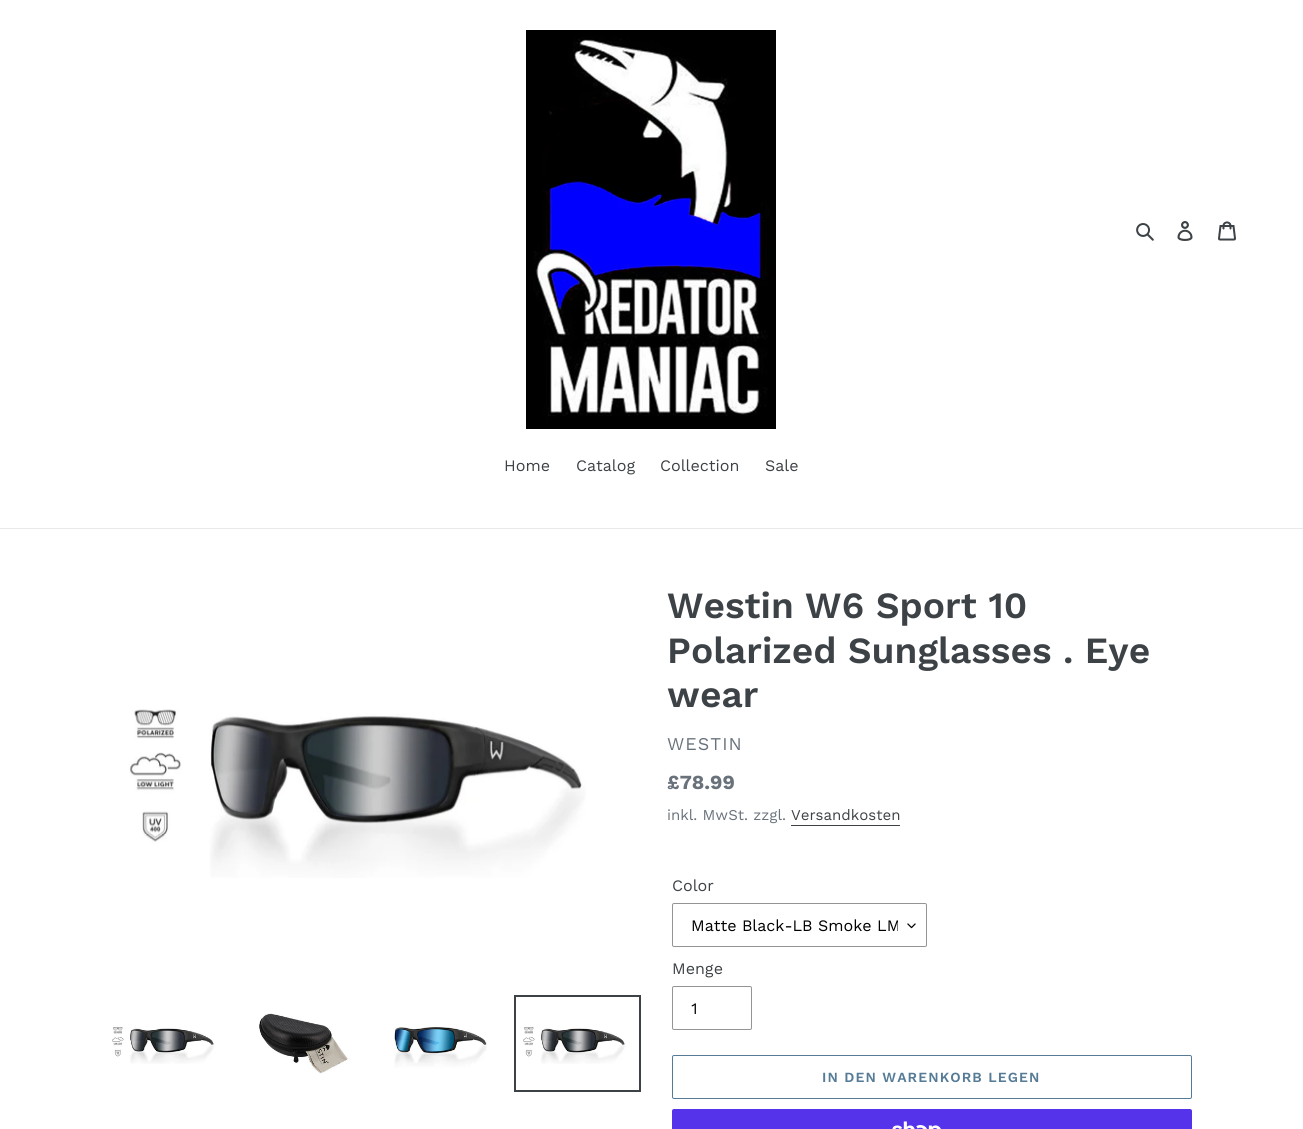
import math
import cairocffi as cairo

surface = cairo.ImageSurface(cairo.FORMAT_RGB24, 1303, 1129)
cr = cairo.Context(surface)
options = cairo.FontOptions()
options.set_hint_metrics(cairo.HINT_METRICS_OFF)
options.set_hint_style(cairo.HINT_STYLE_NONE)
cr.set_font_options(options)
cr.set_miter_limit(4)


def use_color(code):
    cr.set_source_rgb(*(v / 255 for v in bytes.fromhex(code[-6:])))


def spaced_text(x, y, s, letter, word):
    cr.move_to(x, y)
    for ch in s:
        cr.show_text(ch)
        cr.rel_move_to(letter + word * (ch == ' '), 0)


def round_rect(x, y, w, h, r):
    cr.new_sub_path()
    for i, (u, v) in enumerate([(x + w - r, y + h - r), (x + r, y + h - r), (x + r, y + r), (x + w - r, y + r)]):
        cr.arc(u, v, r, i * math.pi / 2, (i + 1) * math.pi / 2)
    cr.close_path()


def picture(path, x, y, w, h):
    cr.save()
    cr.set_source_surface(cairo.ImageSurface.create_from_png(path), x, y)
    cr.rectangle(x, y, w, h)
    cr.fill()
    cr.restore()


use_color("#ffffff")
cr.paint()
picture("img1.png", 526, 30, 250, 399)
picture("img2.png", 1136, 223, 18, 18)
picture("img3.png", 1177, 221, 16, 20)
picture("img4.png", 1218, 221, 18, 20)
use_color("#e8e9eb")
cr.rectangle(0, 528, 1303, 1)
cr.fill()
cr.select_font_face("Work Sans")
cr.set_font_size(16)
use_color("#3d4246")
cr.move_to(504, 471)
cr.show_text("Home")
cr.move_to(576, 471)
cr.show_text("Catalog")
cr.move_to(660, 471)
cr.show_text("Collection")
cr.move_to(765, 471)
cr.show_text("Sale")
picture("img5.png", 129, 709, 457, 169)
picture("img6.png", 112, 1027, 103, 37)
picture("img7.png", 259, 1013, 89, 61)
picture("img8.png", 394, 1027, 93, 41)
cr.rectangle(515, 996, 125, 95)
cr.stroke()
picture("img9.png", 523, 1027, 103, 37)
cr.select_font_face("Work Sans SemiBold")
cr.set_font_size(37)
cr.move_to(667, 618)
cr.show_text("Westin W6 Sport 10")
cr.move_to(667, 663)
cr.show_text("Polarized Sunglasses . Eye")
cr.move_to(667, 707)
cr.show_text("wear")
cr.select_font_face("Work Sans")
cr.set_font_size(18)
use_color("#69727b")
spaced_text(667, 750, "WESTIN", 1, 0)
cr.select_font_face("Work Sans", cairo.FONT_SLANT_NORMAL, cairo.FONT_WEIGHT_BOLD)
cr.set_font_size(20)
cr.move_to(667, 789)
cr.show_text("£78.99")
cr.select_font_face("Work Sans")
cr.set_font_size(15)
cr.move_to(667, 820)
cr.show_text("inkl. MwSt. zzgl.")
use_color("#3d4246")
cr.move_to(791, 820)
cr.show_text("Versandkosten")
cr.rectangle(791, 825, 109, 1)
cr.fill()
cr.set_font_size(16)
cr.move_to(672, 891)
cr.show_text("Color")
picture("img10.png", 907, 923, 9, 6)
round_rect(672.5, 903.5, 254, 43, 1.5)
use_color("#949494")
cr.set_line_width(1)
cr.stroke()
cr.save()
cr.rectangle(691, 916, 207, 19)
cr.clip()
use_color("#000000")
cr.move_to(691, 931)
cr.show_text("Matte Black-LB Smoke LM")
cr.restore()
use_color("#3d4246")
cr.move_to(672, 974)
cr.show_text("Menge")
round_rect(672.5, 986.5, 79, 43, 1.5)
use_color("#949494")
cr.stroke()
use_color("#000000")
cr.move_to(691, 1014)
cr.show_text("1")
round_rect(672.5, 1055.5, 519, 43, 1.5)
use_color("#557b97")
cr.stroke()
cr.select_font_face("Work Sans SemiBold")
cr.set_font_size(14)
spaced_text(822, 1082, "IN DEN WARENKORB LEGEN", 1.1, 0)
use_color("#5433eb")
round_rect(672, 1109, 520, 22, 2)
cr.fill()
picture("img11.png", 892, 1121, 49, 8)
surface.write_to_png("result.png")
